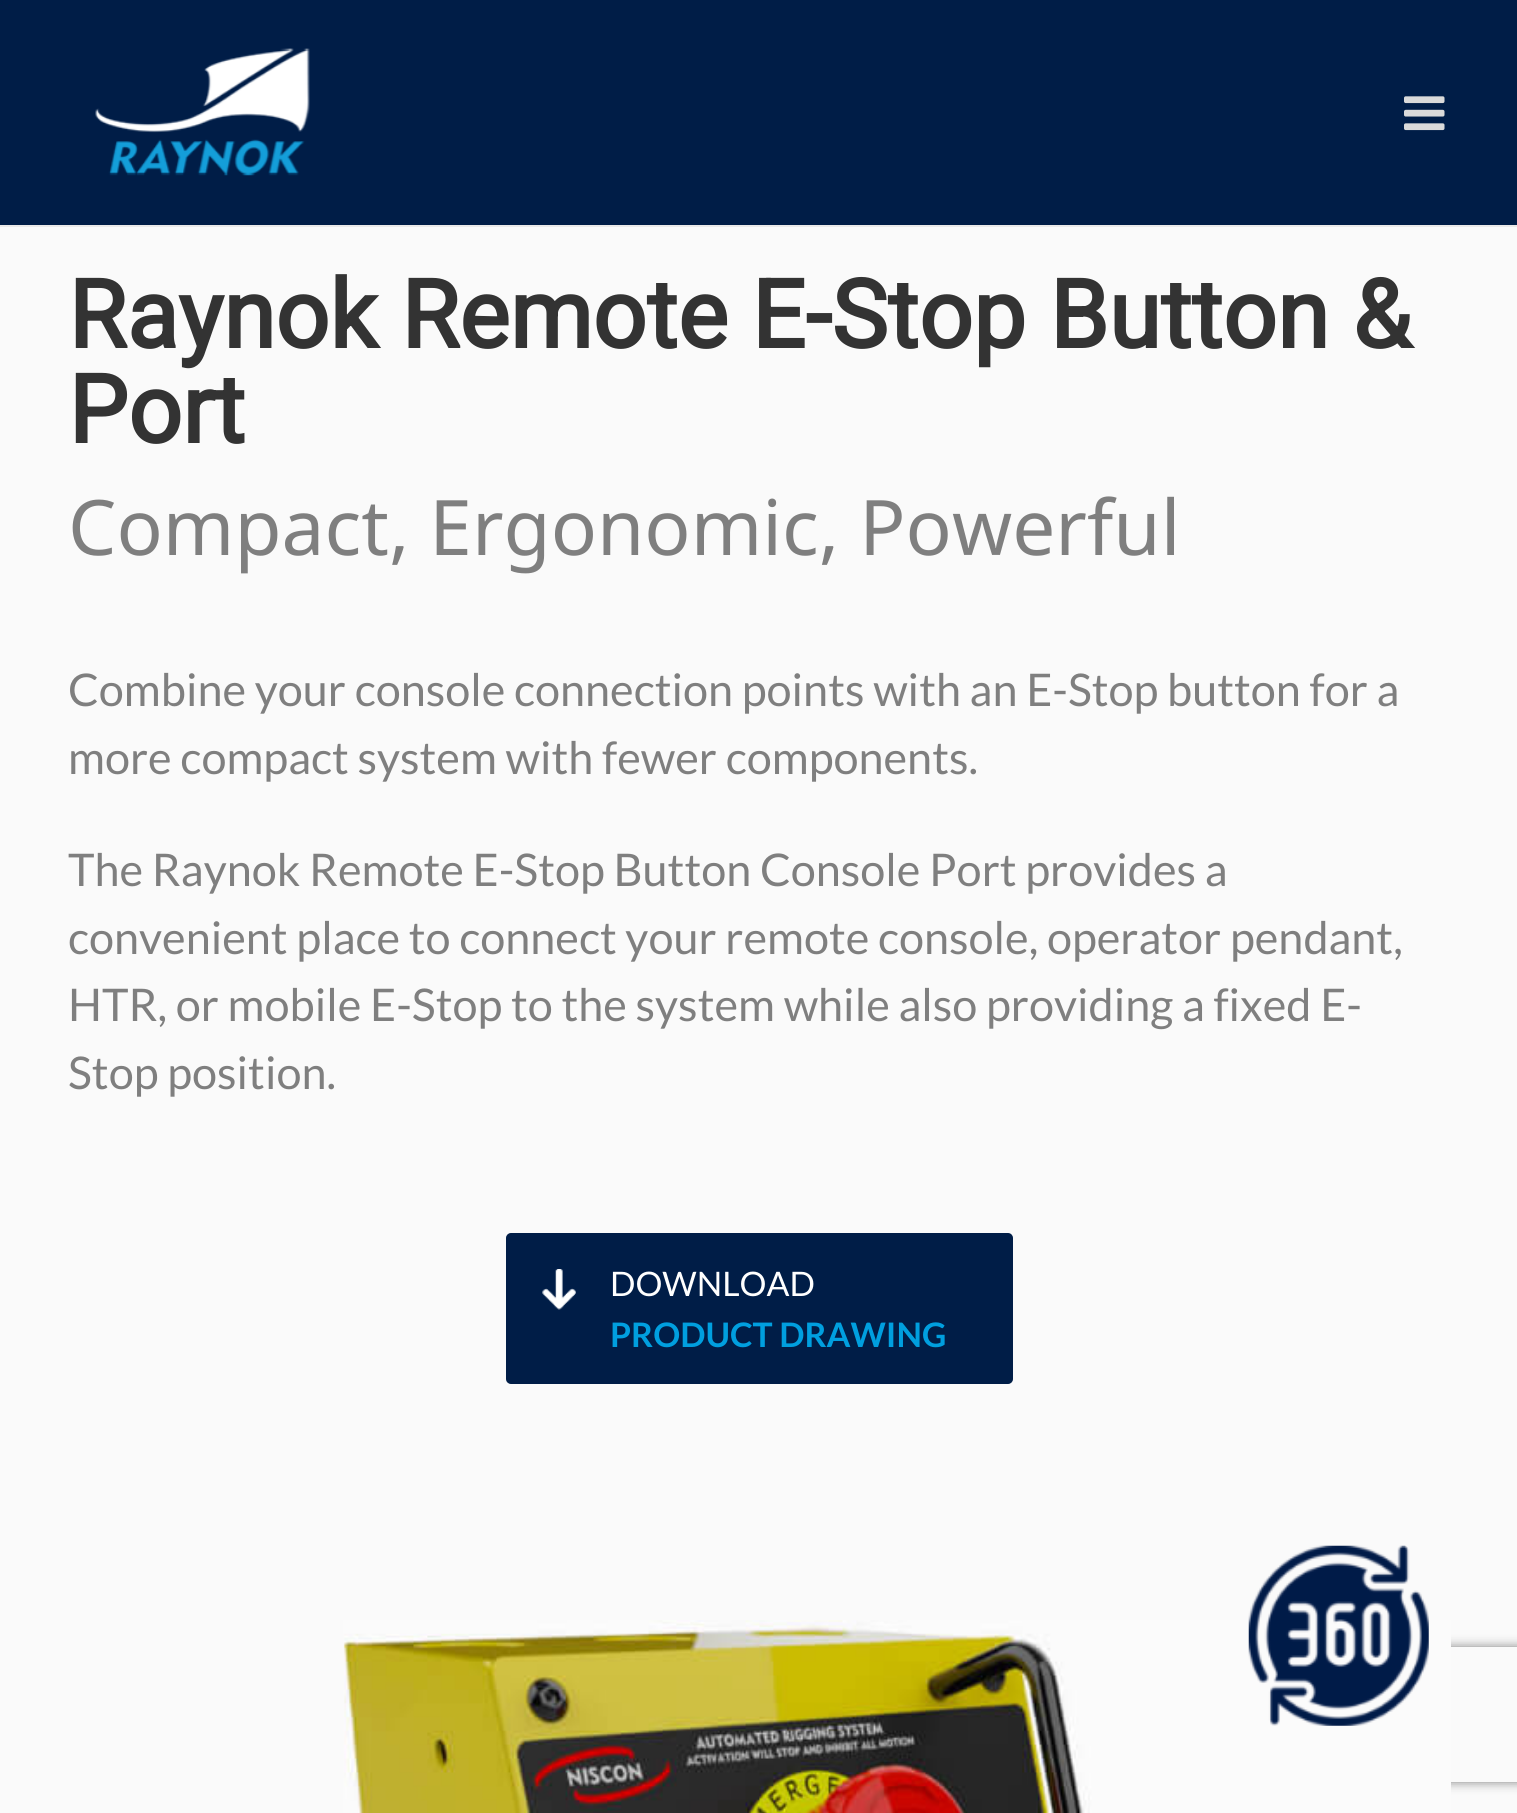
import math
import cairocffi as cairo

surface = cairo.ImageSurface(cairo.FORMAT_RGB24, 1517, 1813)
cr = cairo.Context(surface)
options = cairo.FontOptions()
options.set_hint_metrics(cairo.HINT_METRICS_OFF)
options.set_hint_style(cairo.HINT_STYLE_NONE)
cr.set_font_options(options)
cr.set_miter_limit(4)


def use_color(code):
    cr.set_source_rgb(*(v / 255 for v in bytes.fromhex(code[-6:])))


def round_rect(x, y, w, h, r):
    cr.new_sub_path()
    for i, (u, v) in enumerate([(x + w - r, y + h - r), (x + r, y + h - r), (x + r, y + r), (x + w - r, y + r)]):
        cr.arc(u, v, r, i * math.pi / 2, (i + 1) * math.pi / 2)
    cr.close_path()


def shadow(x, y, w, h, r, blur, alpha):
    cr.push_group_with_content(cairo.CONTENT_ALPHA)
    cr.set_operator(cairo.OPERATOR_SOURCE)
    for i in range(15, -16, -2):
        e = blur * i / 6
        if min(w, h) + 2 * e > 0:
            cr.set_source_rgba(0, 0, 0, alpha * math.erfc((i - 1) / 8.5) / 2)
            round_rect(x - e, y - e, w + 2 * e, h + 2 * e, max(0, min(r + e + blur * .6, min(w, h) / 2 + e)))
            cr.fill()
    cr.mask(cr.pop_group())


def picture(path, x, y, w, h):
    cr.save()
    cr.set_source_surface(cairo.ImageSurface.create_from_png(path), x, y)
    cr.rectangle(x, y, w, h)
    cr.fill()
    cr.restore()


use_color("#fafafa")
cr.paint()
use_color("#001d47")
cr.rectangle(0, 0, 1517, 225)
cr.fill()
picture("img1.png", 95, 48, 215, 128)
picture("img2.png", 1404, 96, 41, 35)
use_color("#eae9e9")
cr.rectangle(0, 225, 1517, 2)
cr.fill()
cr.select_font_face("Roboto", cairo.FONT_SLANT_NORMAL, cairo.FONT_WEIGHT_BOLD)
cr.set_font_size(94.75)
use_color("#333333")
cr.move_to(68, 348)
cr.show_text("Raynok Remote E-Stop Button &")
cr.move_to(68, 443)
cr.show_text("Port")
cr.select_font_face("Noto Sans")
cr.set_font_size(76.6)
use_color("#7f7f7f")
cr.move_to(68, 555)
cr.show_text("Compact, Ergonomic, Powerful")
cr.select_font_face("Lato")
cr.set_font_size(45)
cr.move_to(68, 706)
cr.show_text("Combine your console connection points with an E-Stop button for a")
cr.move_to(68, 774)
cr.show_text("more compact system with fewer components.")
cr.move_to(68, 886)
cr.show_text("The Raynok Remote E-Stop Button Console Port provides a")
cr.move_to(68, 954)
cr.show_text("convenient place to connect your remote console, operator pendant,")
cr.move_to(68, 1021)
cr.show_text("HTR, or mobile E-Stop to the system while also providing a fixed E-")
cr.move_to(68, 1089)
cr.show_text("Stop position.")
use_color("#001d47")
round_rect(507, 1234, 505, 149, 4)
cr.fill_preserve()
cr.stroke()
picture("img3.png", 542, 1269, 34, 41)
cr.set_font_size(33.75)
use_color("#ffffff")
cr.move_to(610, 1296)
cr.show_text("DOWNLOAD")
cr.select_font_face("Lato", cairo.FONT_SLANT_NORMAL, cairo.FONT_WEIGHT_BOLD)
use_color("#009fdf")
cr.move_to(610, 1347)
cr.show_text("PRODUCT DRAWING")
cr.save()
cr.set_fill_rule(cairo.FILL_RULE_EVEN_ODD)
cr.new_path()
cr.move_to(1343, 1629)
cr.line_to(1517, 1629)
cr.line_to(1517, 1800)
cr.line_to(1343, 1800)
cr.close_path()
cr.move_to(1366, 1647)
cr.line_to(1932, 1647)
cr.curve_to(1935, 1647, 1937, 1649, 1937, 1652)
cr.line_to(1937, 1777)
cr.curve_to(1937, 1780, 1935, 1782, 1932, 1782)
cr.line_to(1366, 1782)
cr.curve_to(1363, 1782, 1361, 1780, 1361, 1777)
cr.line_to(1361, 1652)
cr.curve_to(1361, 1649, 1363, 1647, 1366, 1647)
cr.close_path()
cr.clip()
use_color("#808080")
shadow(1361, 1647, 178, 135, 5, 5.5, 1)
cr.restore()
picture("img5.png", 343, 1620, 1108, 193)
picture("img4.png", 1248, 1545, 181, 181)
surface.write_to_png("result.png")
